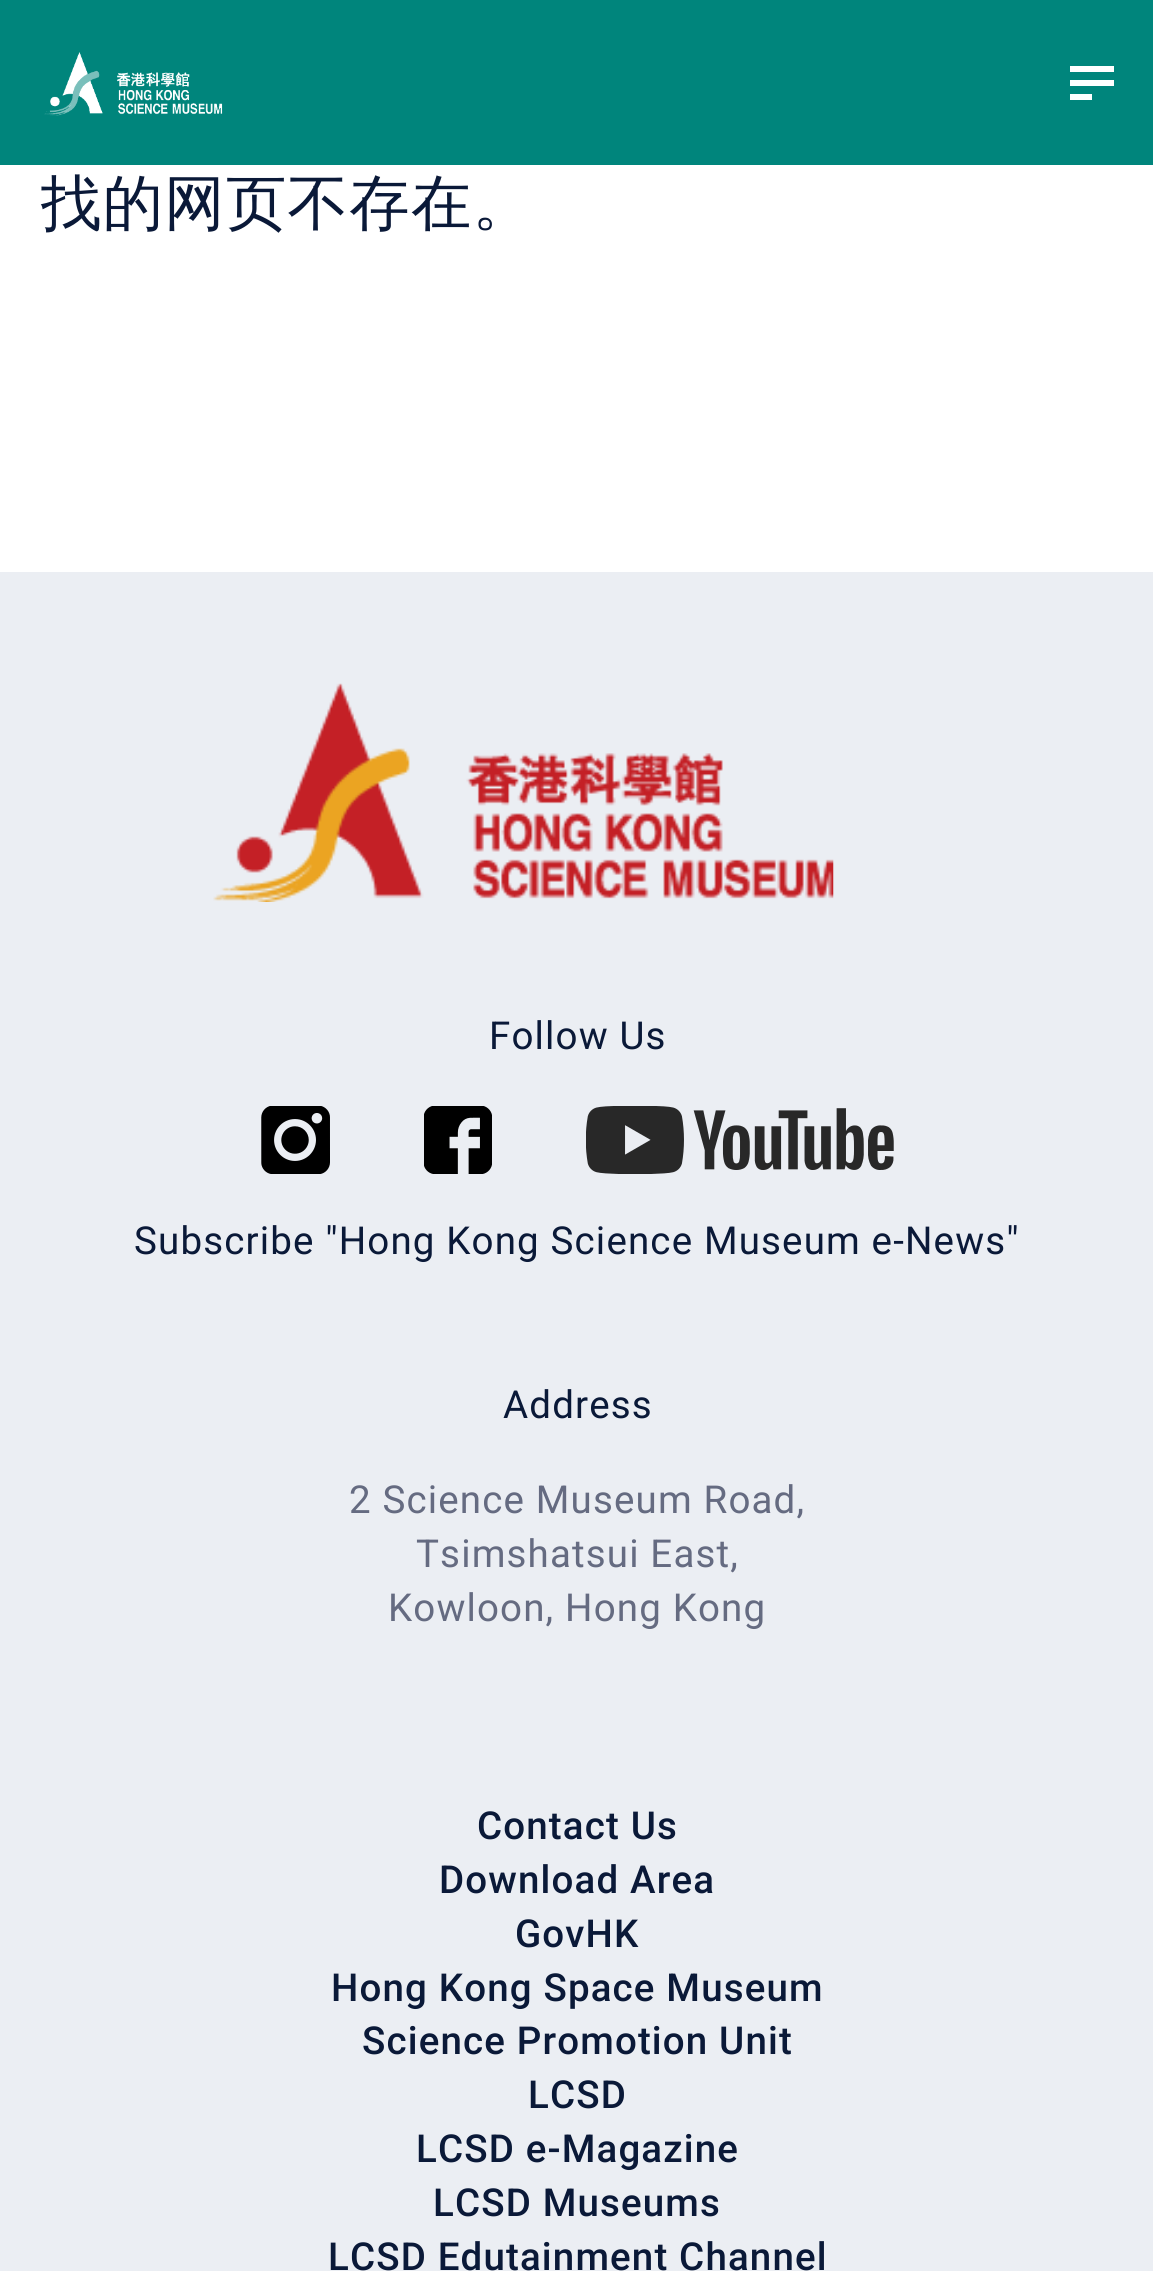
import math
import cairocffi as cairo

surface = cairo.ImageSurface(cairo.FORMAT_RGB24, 1153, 2271)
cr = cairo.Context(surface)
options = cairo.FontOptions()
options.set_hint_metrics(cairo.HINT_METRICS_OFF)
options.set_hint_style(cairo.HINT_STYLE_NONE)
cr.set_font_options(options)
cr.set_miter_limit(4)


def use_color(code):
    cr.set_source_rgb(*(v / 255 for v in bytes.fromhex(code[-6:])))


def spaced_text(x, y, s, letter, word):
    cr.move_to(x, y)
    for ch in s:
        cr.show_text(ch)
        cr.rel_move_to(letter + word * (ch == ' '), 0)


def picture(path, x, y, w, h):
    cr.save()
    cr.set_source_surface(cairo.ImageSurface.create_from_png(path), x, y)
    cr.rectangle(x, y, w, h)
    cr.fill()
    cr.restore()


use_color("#ffffff")
cr.paint()
use_color("#00857c")
cr.rectangle(0, 0, 1153, 165)
cr.fill()
picture("img1.png", 44, 52, 179, 64)
use_color("#ffffff")
cr.rectangle(1070, 66, 44, 6)
cr.fill()
cr.rectangle(1070, 80, 44, 6)
cr.fill()
cr.rectangle(1070, 94, 22, 6)
cr.fill()
cr.select_font_face("WenQuanYi Zen Hei Medium")
cr.set_font_size(60.5)
use_color("#0a1938")
spaced_text(41, 224, "找的网页不存在。", 1.15, 0)
use_color("#ebeef3")
cr.rectangle(0, 572, 1153, 1699)
cr.fill()
picture("img2.png", 213, 683, 621, 219)
cr.select_font_face("Roboto")
cr.set_font_size(38.5)
use_color("#0a1938")
spaced_text(489, 1049, "Follow Us", 1.15, 0)
picture("img3.png", 261, 1106, 69, 68)
picture("img4.png", 424, 1106, 68, 68)
picture("img5.png", 586, 1106, 308, 68)
spaced_text(134, 1254, "Subscribe \"Hong Kong Science Museum e-News\"", 1.15, 0)
spaced_text(503, 1418, "Address", 1.15, 0)
use_color("#656b81")
spaced_text(349, 1513, "2 Science Museum Road,", 1.15, 0)
spaced_text(416, 1567, "Tsimshatsui East,", 1.15, 0)
spaced_text(388, 1621, "Kowloon, Hong Kong", 1.15, 0)
cr.select_font_face("Roboto Medium")
use_color("#0a1938")
spaced_text(477, 1839, "Contact Us", 1.15, 0)
spaced_text(439, 1893, "Download Area", 1.15, 0)
spaced_text(515, 1947, "GovHK", 1.15, 0)
spaced_text(331, 2001, "Hong Kong Space Museum", 1.15, 0)
spaced_text(362, 2054, "Science Promotion Unit", 1.15, 0)
spaced_text(528, 2108, "LCSD", 1.15, 0)
spaced_text(416, 2162, "LCSD e-Magazine", 1.15, 0)
spaced_text(433, 2216, "LCSD Museums", 1.15, 0)
spaced_text(328, 2270, "LCSD Edutainment Channel", 1.15, 0)
surface.write_to_png("result.png")
